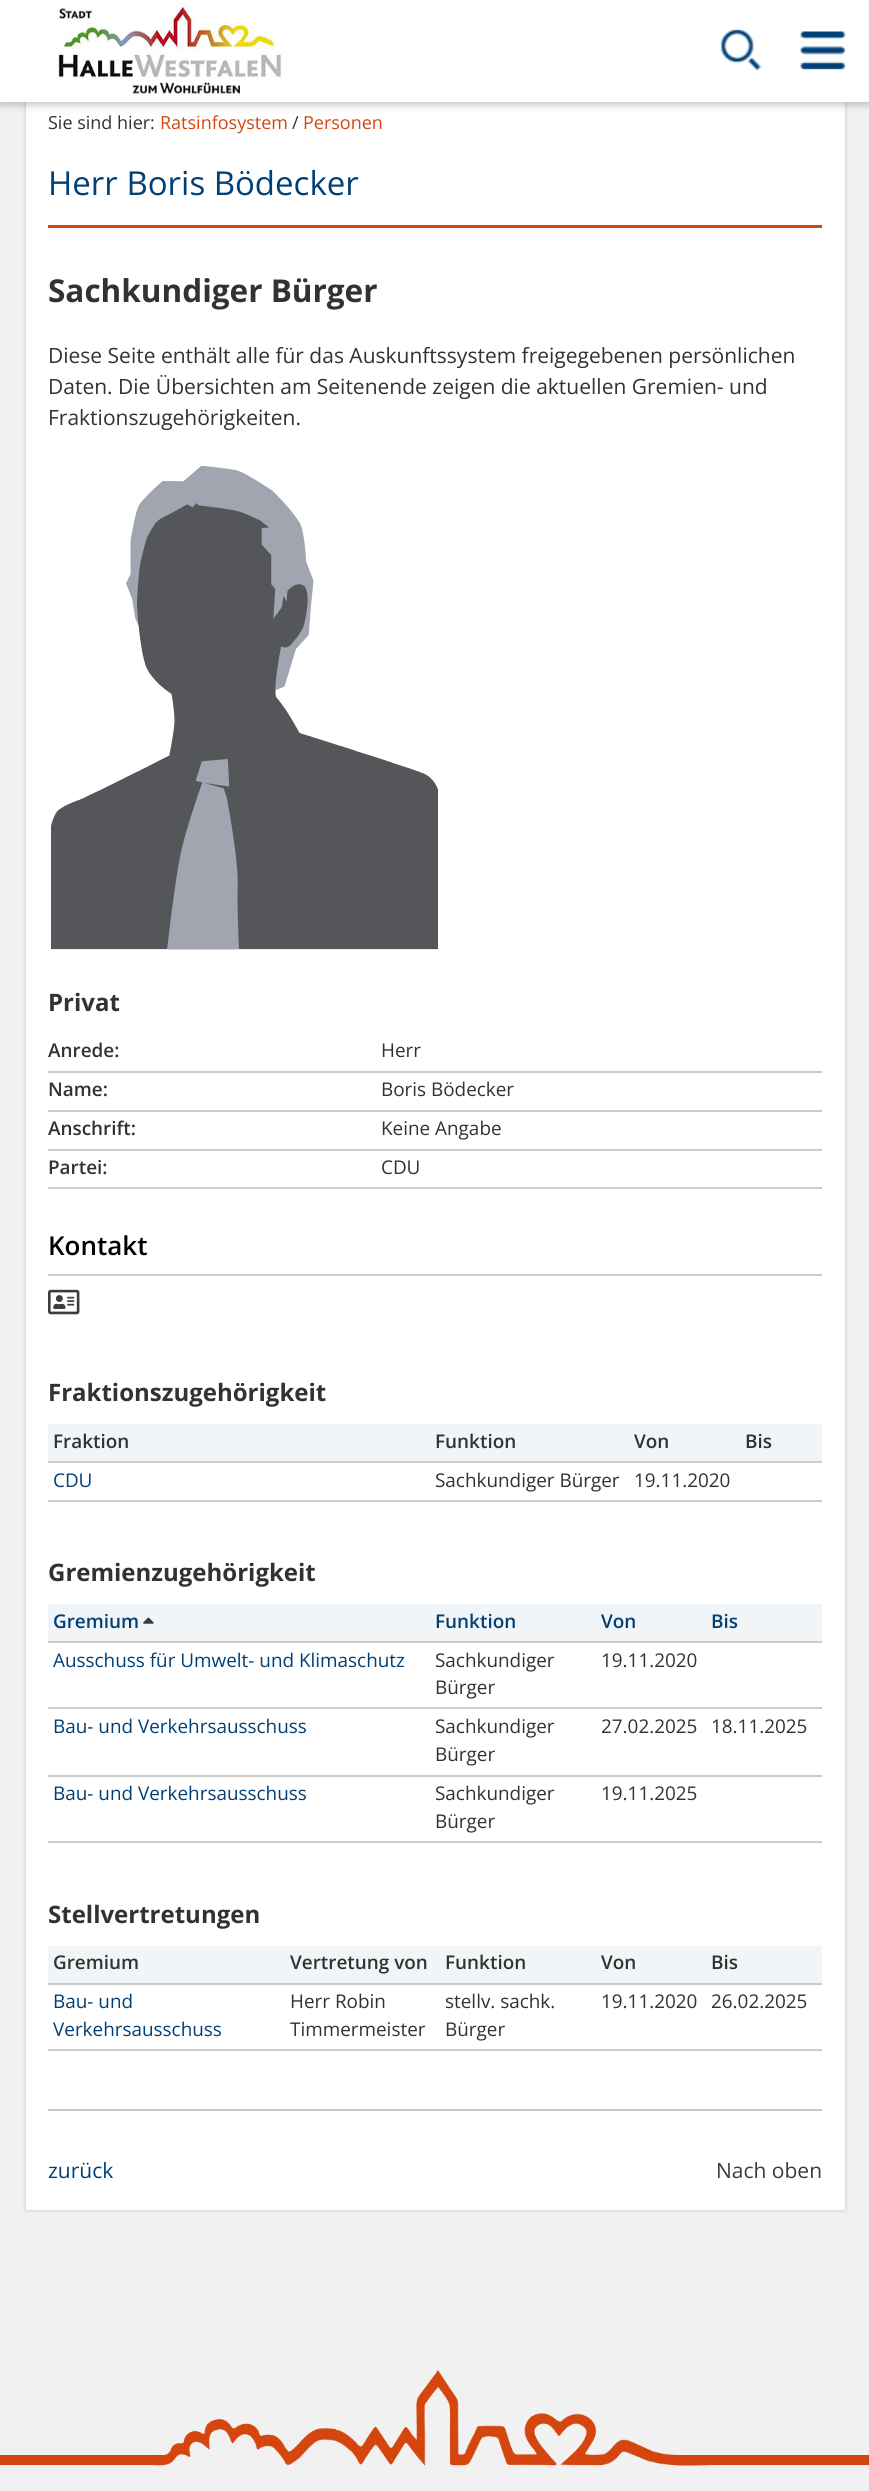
import math
import cairocffi as cairo

surface = cairo.ImageSurface(cairo.FORMAT_RGB24, 869, 2491)
cr = cairo.Context(surface)
options = cairo.FontOptions()
options.set_hint_metrics(cairo.HINT_METRICS_OFF)
options.set_hint_style(cairo.HINT_STYLE_NONE)
cr.set_font_options(options)
cr.set_miter_limit(4)


def use_color(code):
    cr.set_source_rgb(*(v / 255 for v in bytes.fromhex(code[-6:])))


def round_rect(x, y, w, h, r):
    cr.new_sub_path()
    for i, (u, v) in enumerate([(x + w - r, y + h - r), (x + r, y + h - r), (x + r, y + r), (x + w - r, y + r)]):
        cr.arc(u, v, r, i * math.pi / 2, (i + 1) * math.pi / 2)
    cr.close_path()


def shadow(x, y, w, h, r, blur, alpha):
    cr.push_group_with_content(cairo.CONTENT_ALPHA)
    cr.set_operator(cairo.OPERATOR_SOURCE)
    for i in range(15, -16, -2):
        e = blur * i / 6
        if min(w, h) + 2 * e > 0:
            cr.set_source_rgba(0, 0, 0, alpha * math.erfc((i - 1) / 8.5) / 2)
            round_rect(x - e, y - e, w + 2 * e, h + 2 * e, max(0, min(r + e + blur * .6, min(w, h) / 2 + e)))
            cr.fill()
    cr.mask(cr.pop_group())


def picture(path, x, y, w, h):
    cr.save()
    cr.set_source_surface(cairo.ImageSurface.create_from_png(path), x, y)
    cr.rectangle(x, y, w, h)
    cr.fill()
    cr.restore()


use_color("#f1f1f1")
cr.paint()
use_color("#c2c2c2")
shadow(26, 87, 819, 2123, 0, 2, 1)
use_color("#ffffff")
cr.rectangle(26, 102, 819, 2108)
cr.fill()
use_color("#000000")
shadow(0, 3, 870, 102, 0, 4, 0.22)
use_color("#ffffff")
cr.rectangle(0, 0, 869, 102)
cr.fill()
picture("img1.png", 57, 2, 225, 94)
picture("img2.png", 720, 29, 42, 42)
picture("img3.png", 800, 31, 46, 39)
cr.select_font_face("Open Sans")
cr.set_font_size(18)
use_color("#323231")
cr.move_to(48, 129)
cr.show_text("Sie sind hier:")
use_color("#d4460e")
cr.move_to(160, 129)
cr.show_text("Ratsinfosystem")
use_color("#323231")
cr.move_to(292, 129)
cr.show_text("/")
use_color("#d4460e")
cr.move_to(303, 129)
cr.show_text("Personen")
cr.rectangle(48, 225, 774, 3)
cr.fill()
cr.set_font_size(33)
use_color("#004077")
cr.move_to(48, 195)
cr.show_text("Herr Boris Bödecker")
cr.select_font_face("Open Sans", cairo.FONT_SLANT_NORMAL, cairo.FONT_WEIGHT_BOLD)
cr.set_font_size(31.5)
use_color("#323231")
cr.move_to(48, 302)
cr.show_text("Sachkundiger Bürger")
cr.select_font_face("Open Sans")
cr.set_font_size(21)
cr.move_to(48, 363)
cr.show_text("Diese Seite enthält alle für das Auskunftssystem freigegebenen persönlichen")
cr.move_to(48, 394)
cr.show_text("Daten. Die Übersichten am Seitenende zeigen die aktuellen Gremien- und")
cr.move_to(48, 425)
cr.show_text("Fraktionszugehörigkeiten.")
picture("img4.png", 51, 465, 387, 485)
cr.select_font_face("Open Sans", cairo.FONT_SLANT_NORMAL, cairo.FONT_WEIGHT_BOLD)
cr.set_font_size(24)
cr.move_to(48, 1011)
cr.show_text("Privat")
cr.select_font_face("Open Sans SemiBold")
cr.set_font_size(18.9)
cr.move_to(48, 1057)
cr.show_text("Anrede:")
use_color("#cccccc")
cr.rectangle(48, 1071, 774, 2)
cr.fill()
cr.select_font_face("Open Sans")
use_color("#323231")
cr.move_to(381, 1057)
cr.show_text("Herr")
cr.select_font_face("Open Sans SemiBold")
cr.move_to(48, 1096)
cr.show_text("Name:")
use_color("#cccccc")
cr.rectangle(48, 1110, 774, 2)
cr.fill()
cr.select_font_face("Open Sans")
use_color("#323231")
cr.move_to(381, 1096)
cr.show_text("Boris Bödecker")
cr.select_font_face("Open Sans SemiBold")
cr.move_to(48, 1135)
cr.show_text("Anschrift:")
use_color("#cccccc")
cr.rectangle(48, 1149, 774, 2)
cr.fill()
cr.select_font_face("Open Sans")
use_color("#323231")
cr.move_to(381, 1135)
cr.show_text("Keine Angabe")
cr.select_font_face("Open Sans SemiBold")
cr.move_to(48, 1174)
cr.show_text("Partei:")
use_color("#cccccc")
cr.rectangle(48, 1187, 774, 2)
cr.fill()
cr.select_font_face("Open Sans")
use_color("#323231")
cr.move_to(381, 1174)
cr.show_text("CDU")
use_color("#cccccc")
cr.rectangle(48, 1274, 774, 2)
cr.fill()
cr.select_font_face("Open Sans SemiBold")
cr.set_font_size(26)
use_color("#000000")
cr.move_to(48, 1255)
cr.show_text("Kontakt")
picture("img5.png", 48, 1289, 32, 26)
cr.select_font_face("Open Sans", cairo.FONT_SLANT_NORMAL, cairo.FONT_WEIGHT_BOLD)
cr.set_font_size(24)
use_color("#323231")
cr.move_to(48, 1401)
cr.show_text("Fraktionszugehörigkeit")
use_color("#f2f5f7")
cr.rectangle(48, 1424, 774, 37)
cr.fill()
cr.select_font_face("Open Sans SemiBold")
cr.set_font_size(18.9)
use_color("#323231")
cr.move_to(53, 1448)
cr.show_text("Fraktion")
cr.move_to(435, 1448)
cr.show_text("Funktion")
cr.move_to(634, 1448)
cr.show_text("Von")
use_color("#cccccc")
cr.rectangle(48, 1461, 774, 2)
cr.fill()
use_color("#323231")
cr.move_to(745, 1448)
cr.show_text("Bis")
cr.select_font_face("Open Sans")
use_color("#004077")
cr.move_to(53, 1487)
cr.show_text("CDU")
use_color("#323231")
cr.move_to(435, 1487)
cr.show_text("Sachkundiger Bürger")
cr.move_to(634, 1487)
cr.show_text("19.11.2020")
use_color("#cccccc")
cr.rectangle(48, 1500, 774, 2)
cr.fill()
cr.select_font_face("Open Sans", cairo.FONT_SLANT_NORMAL, cairo.FONT_WEIGHT_BOLD)
cr.set_font_size(24)
use_color("#323231")
cr.move_to(48, 1581)
cr.show_text("Gremienzugehörigkeit")
use_color("#f2f5f7")
cr.rectangle(48, 1604, 774, 37)
cr.fill()
cr.select_font_face("Open Sans SemiBold")
cr.set_font_size(18.9)
use_color("#004077")
cr.move_to(53, 1628)
cr.show_text("Gremium")
picture("img6.png", 143, 1617, 11, 7)
cr.move_to(435, 1628)
cr.show_text("Funktion")
cr.move_to(601, 1628)
cr.show_text("Von")
use_color("#cccccc")
cr.rectangle(48, 1641, 774, 2)
cr.fill()
use_color("#004077")
cr.move_to(711, 1628)
cr.show_text("Bis")
cr.select_font_face("Open Sans")
cr.move_to(53, 1667)
cr.show_text("Ausschuss für Umwelt- und Klimaschutz")
use_color("#323231")
cr.move_to(435, 1667)
cr.show_text("Sachkundiger")
cr.move_to(435, 1694)
cr.show_text("Bürger")
cr.move_to(601, 1667)
cr.show_text("19.11.2020")
use_color("#cccccc")
cr.rectangle(48, 1707, 774, 2)
cr.fill()
use_color("#004077")
cr.move_to(53, 1733)
cr.show_text("Bau- und Verkehrsausschuss")
use_color("#323231")
cr.move_to(435, 1733)
cr.show_text("Sachkundiger")
cr.move_to(435, 1761)
cr.show_text("Bürger")
cr.move_to(601, 1733)
cr.show_text("27.02.2025")
use_color("#cccccc")
cr.rectangle(48, 1775, 774, 2)
cr.fill()
use_color("#323231")
cr.move_to(711, 1733)
cr.show_text("18.11.2025")
use_color("#004077")
cr.move_to(53, 1800)
cr.show_text("Bau- und Verkehrsausschuss")
use_color("#323231")
cr.move_to(435, 1800)
cr.show_text("Sachkundiger")
cr.move_to(435, 1828)
cr.show_text("Bürger")
cr.move_to(601, 1800)
cr.show_text("19.11.2025")
use_color("#cccccc")
cr.rectangle(48, 1841, 774, 2)
cr.fill()
cr.select_font_face("Open Sans", cairo.FONT_SLANT_NORMAL, cairo.FONT_WEIGHT_BOLD)
cr.set_font_size(24)
use_color("#323231")
cr.move_to(48, 1923)
cr.show_text("Stellvertretungen")
use_color("#f2f5f7")
cr.rectangle(48, 1946, 774, 37)
cr.fill()
cr.select_font_face("Open Sans SemiBold")
cr.set_font_size(18.9)
use_color("#323231")
cr.move_to(53, 1969)
cr.show_text("Gremium")
cr.move_to(290, 1969)
cr.show_text("Vertretung von")
cr.move_to(445, 1969)
cr.show_text("Funktion")
cr.move_to(601, 1969)
cr.show_text("Von")
use_color("#cccccc")
cr.rectangle(48, 1983, 774, 2)
cr.fill()
use_color("#323231")
cr.move_to(711, 1969)
cr.show_text("Bis")
cr.select_font_face("Open Sans")
use_color("#004077")
cr.move_to(53, 2008)
cr.show_text("Bau- und")
cr.move_to(53, 2036)
cr.show_text("Verkehrsausschuss")
use_color("#323231")
cr.move_to(290, 2008)
cr.show_text("Herr Robin")
cr.move_to(290, 2036)
cr.show_text("Timmermeister")
cr.move_to(445, 2008)
cr.show_text("stellv. sachk.")
cr.move_to(445, 2036)
cr.show_text("Bürger")
cr.move_to(601, 2008)
cr.show_text("19.11.2020")
use_color("#cccccc")
cr.rectangle(48, 2049, 774, 2)
cr.fill()
use_color("#323231")
cr.move_to(711, 2008)
cr.show_text("26.02.2025")
use_color("#c8c8c8")
cr.rectangle(48, 2109, 774, 2)
cr.fill()
cr.set_font_size(21)
use_color("#004077")
cr.move_to(48, 2178)
cr.show_text("zurück")
use_color("#3c3c3b")
cr.move_to(716, 2178)
cr.show_text("Nach oben")
picture("img7.png", 0, 2370, 869, 96)
surface.write_to_png("result.png")
